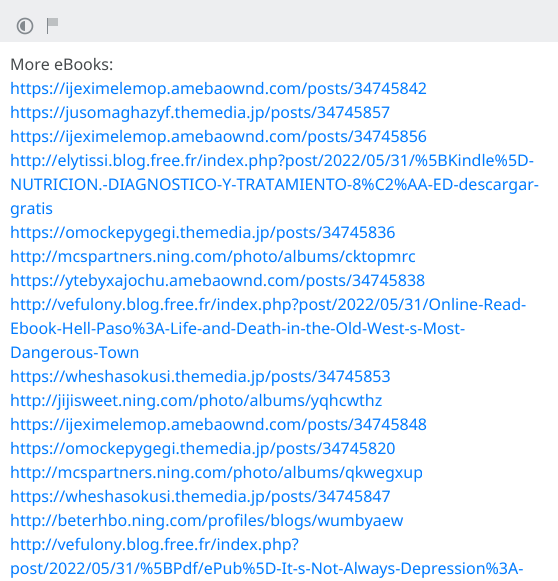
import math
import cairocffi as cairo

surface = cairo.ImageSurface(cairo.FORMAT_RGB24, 558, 581)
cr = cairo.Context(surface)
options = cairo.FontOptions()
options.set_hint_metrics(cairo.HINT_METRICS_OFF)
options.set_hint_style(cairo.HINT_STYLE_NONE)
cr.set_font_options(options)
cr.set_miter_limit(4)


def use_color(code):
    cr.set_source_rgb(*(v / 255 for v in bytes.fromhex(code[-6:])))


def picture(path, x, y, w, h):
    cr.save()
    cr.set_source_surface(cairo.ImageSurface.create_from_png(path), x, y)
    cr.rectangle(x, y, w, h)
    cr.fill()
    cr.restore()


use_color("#edeef0")
cr.paint()
picture("img1.png", 16, 17, 18, 18)
use_color("#83898e")
cr.rectangle(47, 18, 1, 16)
cr.fill()
use_color("#bdc0c2")
cr.rectangle(48, 18, 10, 8)
cr.fill()
use_color("#ffffff")
cr.rectangle(0, 42, 558, 539)
cr.fill()
cr.select_font_face("Noto Sans")
cr.set_font_size(16)
use_color("#464a4c")
cr.move_to(10, 70)
cr.show_text("More eBooks:")
use_color("#007bff")
cr.move_to(10, 94)
cr.show_text("https://ijeximelemop.amebaownd.com/posts/34745842")
cr.move_to(10, 118)
cr.show_text("https://jusomaghazyf.themedia.jp/posts/34745857")
cr.move_to(10, 142)
cr.show_text("https://ijeximelemop.amebaownd.com/posts/34745856")
cr.move_to(10, 166)
cr.show_text("http://elytissi.blog.free.fr/index.php?post/2022/05/31/%5BKindle%5D-")
cr.move_to(10, 190)
cr.show_text("NUTRICION.-DIAGNOSTICO-Y-TRATAMIENTO-8%C2%AA-ED-descargar-")
cr.move_to(10, 214)
cr.show_text("gratis")
cr.move_to(10, 238)
cr.show_text("https://omockepygegi.themedia.jp/posts/34745836")
cr.move_to(10, 262)
cr.show_text("http://mcspartners.ning.com/photo/albums/cktopmrc")
cr.move_to(10, 286)
cr.show_text("https://ytebyxajochu.amebaownd.com/posts/34745838")
cr.move_to(10, 310)
cr.show_text("http://vefulony.blog.free.fr/index.php?post/2022/05/31/Online-Read-")
cr.move_to(10, 334)
cr.show_text("Ebook-Hell-Paso%3A-Life-and-Death-in-the-Old-West-s-Most-")
cr.move_to(10, 358)
cr.show_text("Dangerous-Town")
cr.move_to(10, 382)
cr.show_text("https://wheshasokusi.themedia.jp/posts/34745853")
cr.move_to(10, 406)
cr.show_text("http://jijisweet.ning.com/photo/albums/yqhcwthz")
cr.move_to(10, 430)
cr.show_text("https://ijeximelemop.amebaownd.com/posts/34745848")
cr.move_to(10, 454)
cr.show_text("https://omockepygegi.themedia.jp/posts/34745820")
cr.move_to(10, 478)
cr.show_text("http://mcspartners.ning.com/photo/albums/qkwegxup")
cr.move_to(10, 502)
cr.show_text("https://wheshasokusi.themedia.jp/posts/34745847")
cr.move_to(10, 526)
cr.show_text("http://beterhbo.ning.com/profiles/blogs/wumbyaew")
cr.move_to(10, 550)
cr.show_text("http://vefulony.blog.free.fr/index.php?")
cr.move_to(10, 574)
cr.show_text("post/2022/05/31/%5BPdf/ePub%5D-It-s-Not-Always-Depression%3A-")
surface.write_to_png("result.png")
